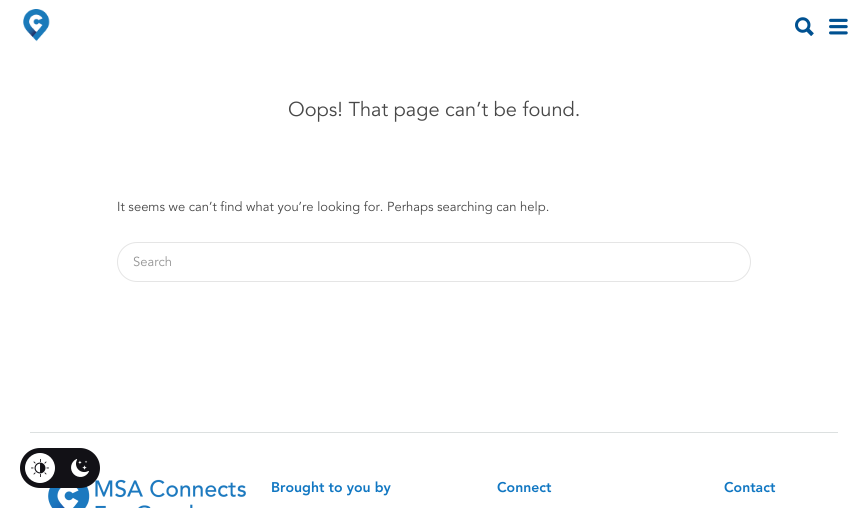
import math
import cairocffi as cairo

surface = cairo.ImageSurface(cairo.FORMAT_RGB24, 868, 508)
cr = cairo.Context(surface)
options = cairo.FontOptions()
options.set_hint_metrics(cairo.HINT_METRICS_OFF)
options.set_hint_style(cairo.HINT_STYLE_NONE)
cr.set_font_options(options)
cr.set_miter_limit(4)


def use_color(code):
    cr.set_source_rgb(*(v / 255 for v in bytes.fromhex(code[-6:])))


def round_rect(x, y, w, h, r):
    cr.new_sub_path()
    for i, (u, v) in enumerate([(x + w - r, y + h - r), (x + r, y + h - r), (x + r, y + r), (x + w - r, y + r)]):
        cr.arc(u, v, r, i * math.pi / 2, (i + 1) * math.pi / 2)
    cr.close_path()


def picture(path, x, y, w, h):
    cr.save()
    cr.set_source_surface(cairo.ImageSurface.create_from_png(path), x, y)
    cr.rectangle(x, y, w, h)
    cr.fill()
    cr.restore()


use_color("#ffffff")
cr.paint()
picture("img1.png", 23, 9, 27, 33)
picture("img2.png", 795, 17, 19, 19)
picture("img3.png", 829, 18, 19, 17)
cr.select_font_face("Avenir")
cr.set_font_size(20)
use_color("#484848")
cr.move_to(288, 116)
cr.show_text("Oops! That page can’t be found.")
cr.set_font_size(13)
cr.move_to(117, 211)
cr.show_text("It seems we can’t find what you’re looking for. Perhaps searching can help.")
round_rect(117.5, 242.5, 633, 39, 19.5)
use_color("#e5e5e5")
cr.set_line_width(1)
cr.stroke()
use_color("#939393")
cr.move_to(133, 266)
cr.show_text("Search")
picture("img6.png", 48, 479, 198, 29)
use_color("#121116")
round_rect(20, 448, 80, 40, 20)
cr.fill()
use_color("#ffffff")
cr.arc(40, 468, 15, 0, 2 * math.pi)
cr.fill()
picture("img4.png", 31, 459, 18, 18)
picture("img5.png", 71, 459, 18, 18)
use_color("#dce0e0")
cr.rectangle(30, 432, 808, 1)
cr.fill()
cr.select_font_face("Avenir Black")
cr.set_font_size(14)
use_color("#1177c2")
cr.move_to(271, 492)
cr.show_text("Brought to you by")
cr.move_to(497, 492)
cr.show_text("Connect")
cr.move_to(724, 492)
cr.show_text("Contact")
surface.write_to_png("result.png")
